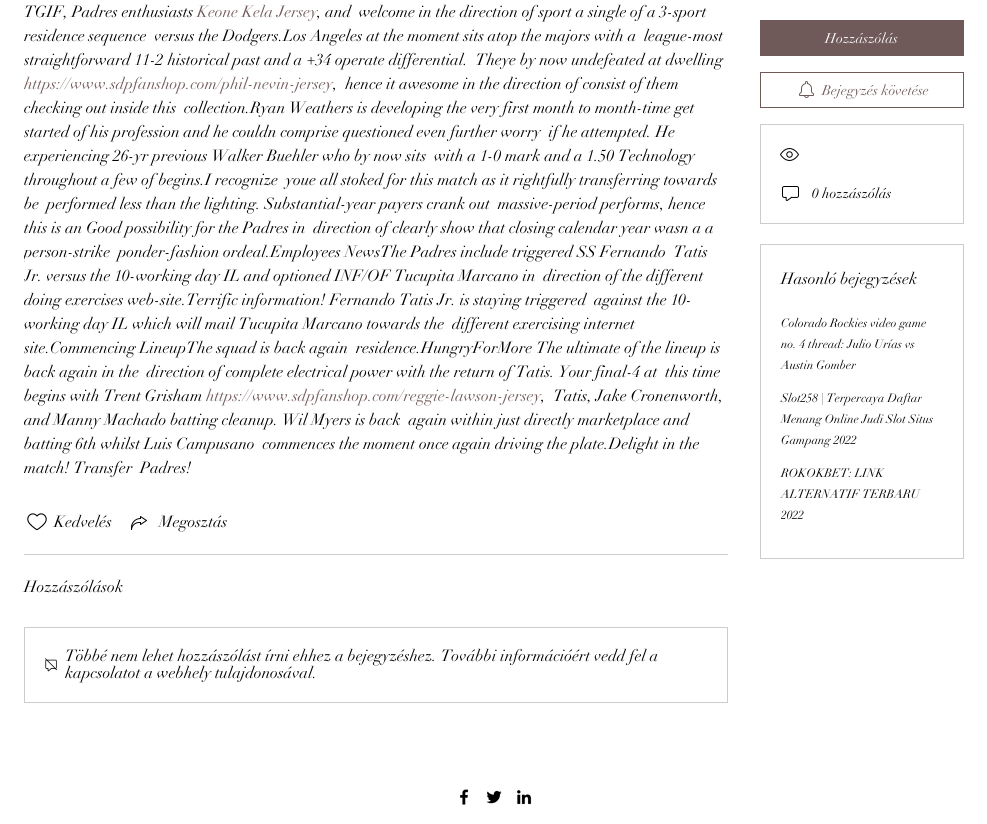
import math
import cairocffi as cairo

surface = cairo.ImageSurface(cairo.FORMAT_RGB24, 987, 824)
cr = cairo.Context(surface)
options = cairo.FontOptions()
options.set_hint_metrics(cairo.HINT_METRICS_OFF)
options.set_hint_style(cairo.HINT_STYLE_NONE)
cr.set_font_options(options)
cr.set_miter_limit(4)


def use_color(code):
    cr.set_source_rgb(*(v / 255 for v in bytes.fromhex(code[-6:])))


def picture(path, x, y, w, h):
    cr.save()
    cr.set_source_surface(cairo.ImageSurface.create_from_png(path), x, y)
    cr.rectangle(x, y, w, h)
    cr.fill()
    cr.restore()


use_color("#ffffff")
cr.paint()
cr.select_font_face("didot")
cr.set_font_size(16)
use_color("#000000")
cr.move_to(24, 17)
cr.show_text("TGIF, Padres enthusiasts")
use_color("#705959")
cr.move_to(197, 17)
cr.show_text("Keone Kela Jersey")
use_color("#000000")
cr.move_to(317, 17)
cr.show_text(", and  welcome in the direction of sport a single of a 3-sport")
cr.move_to(24, 41)
cr.show_text("residence sequence  versus the Dodgers.Los Angeles at the moment sits atop the majors with a  league-most")
cr.save()
cr.rectangle(24, 0, 704, 480)
cr.clip()
cr.move_to(24, 65)
cr.show_text("straightforward 11-2 historical past and a +34 operate differential.  Theye by now undefeated at dwelling")
cr.restore()
use_color("#705959")
cr.move_to(24, 89)
cr.show_text("https://www.sdpfanshop.com/phil-nevin-jersey")
use_color("#000000")
cr.move_to(333, 89)
cr.show_text(",  hence it awesome in the direction of consist of them")
cr.save()
cr.rectangle(24, 0, 704, 480)
cr.clip()
cr.move_to(24, 113)
cr.show_text("checking out inside this  collection.Ryan Weathers is developing the very first month to month-time get")
cr.move_to(24, 137)
cr.show_text("started of his profession and he couldn comprise questioned even further worry  if he attempted. He")
cr.move_to(24, 161)
cr.show_text("experiencing 26-yr previous Walker Buehler who by now sits  with a 1-0 mark and a 1.50 Technology")
cr.restore()
cr.move_to(24, 185)
cr.show_text("throughout a few of begins.I recognize  youe all stoked for this match as it rightfully transferring towards")
cr.move_to(24, 209)
cr.show_text("be  performed less than the lighting. Substantial-year payers crank out  massive-period performs, hence")
cr.move_to(24, 233)
cr.show_text("this is an Good possibility for the Padres in  direction of clearly show that closing calendar year wasn a a")
cr.save()
cr.rectangle(24, 0, 704, 480)
cr.clip()
cr.move_to(24, 257)
cr.show_text("person-strike  ponder-fashion ordeal.Employees NewsThe Padres include triggered SS Fernando  Tatis")
cr.move_to(24, 281)
cr.show_text("Jr. versus the 10-working day IL and optioned INF/OF Tucupita Marcano in  direction of the different")
cr.move_to(24, 305)
cr.show_text("doing exercises web-site.Terrific information! Fernando Tatis Jr. is staying triggered  against the 10-")
cr.restore()
cr.move_to(24, 329)
cr.show_text("working day IL which will mail Tucupita Marcano towards the  different exercising internet")
cr.save()
cr.rectangle(24, 0, 704, 480)
cr.clip()
cr.move_to(24, 353)
cr.show_text("site.Commencing LineupThe squad is back again  residence.HungryForMore The ultimate of the lineup is")
cr.restore()
cr.move_to(24, 377)
cr.show_text("back again in the  direction of complete electrical power with the return of Tatis. Your final-4 at  this time")
cr.move_to(24, 401)
cr.show_text("begins with Trent Grisham")
use_color("#705959")
cr.move_to(206, 401)
cr.show_text("https://www.sdpfanshop.com/reggie-lawson-jersey")
use_color("#000000")
cr.move_to(541, 401)
cr.show_text(",  Tatis, Jake Cronenworth,")
cr.save()
cr.rectangle(24, 0, 704, 480)
cr.clip()
cr.move_to(24, 425)
cr.show_text("and Manny Machado batting cleanup. Wil Myers is back  again within just directly marketplace and")
cr.restore()
cr.move_to(24, 449)
cr.show_text("batting 6th whilst Luis Campusano  commences the moment once again driving the plate.Delight in the")
cr.move_to(24, 473)
cr.show_text("match! Transfer  Padres!")
picture("img1.png", 27, 513, 20, 18)
cr.move_to(54, 527)
cr.show_text("Kedvelés")
picture("img2.png", 131, 516, 16, 14)
cr.move_to(159, 527)
cr.show_text("Megosztás")
use_color("#cccccc")
cr.rectangle(24, 554, 704, 1)
cr.fill()
use_color("#000000")
cr.move_to(24, 592)
cr.show_text("Hozzászólások")
cr.rectangle(24.5, 627.5, 703, 75)
use_color("#cccccc")
cr.set_line_width(1)
cr.stroke()
picture("img3.png", 45, 658, 12, 14)
use_color("#000000")
cr.move_to(65, 661)
cr.show_text("Többé nem lehet hozzászólást írni ehhez a bejegyzéshez. További információért vedd fel a")
cr.move_to(65, 678)
cr.show_text("kapcsolatot a webhely tulajdonosával.")
use_color("#705959")
cr.rectangle(760, 20, 204, 36)
cr.fill()
cr.set_font_size(14)
use_color("#ffffff")
cr.move_to(825, 43)
cr.show_text("Hozzászólás")
cr.rectangle(760.5, 72.5, 203, 35)
use_color("#705959")
cr.stroke()
picture("img4.png", 799, 81, 15, 17)
cr.move_to(822, 95)
cr.show_text("Bejegyzés követése")
cr.rectangle(760.5, 124.5, 203, 99)
use_color("#cccccc")
cr.stroke()
picture("img5.png", 780, 148, 19, 13)
picture("img6.png", 782, 186, 17, 15)
use_color("#000000")
cr.move_to(812, 198)
cr.show_text("0 hozzászólás")
cr.rectangle(760.5, 244.5, 203, 314)
use_color("#cccccc")
cr.stroke()
cr.set_font_size(16)
use_color("#000000")
cr.move_to(781, 284)
cr.show_text("Hasonló bejegyzések")
cr.set_font_size(12)
cr.move_to(781, 327)
cr.show_text("Colorado Rockies video game")
cr.move_to(781, 348)
cr.show_text("no. 4 thread: Julio Urías vs")
cr.move_to(781, 369)
cr.show_text("Austin Gomber")
cr.move_to(781, 402)
cr.show_text("Slot258 | Terpercaya Daftar")
cr.move_to(781, 423)
cr.show_text("Menang Online Judi Slot Situs")
cr.move_to(781, 444)
cr.show_text("Gampang 2022")
cr.move_to(781, 477)
cr.show_text("ROKOKBET: LINK")
cr.move_to(781, 498)
cr.show_text("ALTERNATIF TERBARU")
cr.save()
cr.rectangle(781, 463, 162, 63)
cr.clip()
cr.move_to(781, 519)
cr.show_text("2022")
cr.restore()
picture("img7.png", 460, 789, 9, 16)
picture("img8.png", 486, 790, 16, 14)
picture("img9.png", 517, 790, 15, 15)
surface.write_to_png("result.png")
